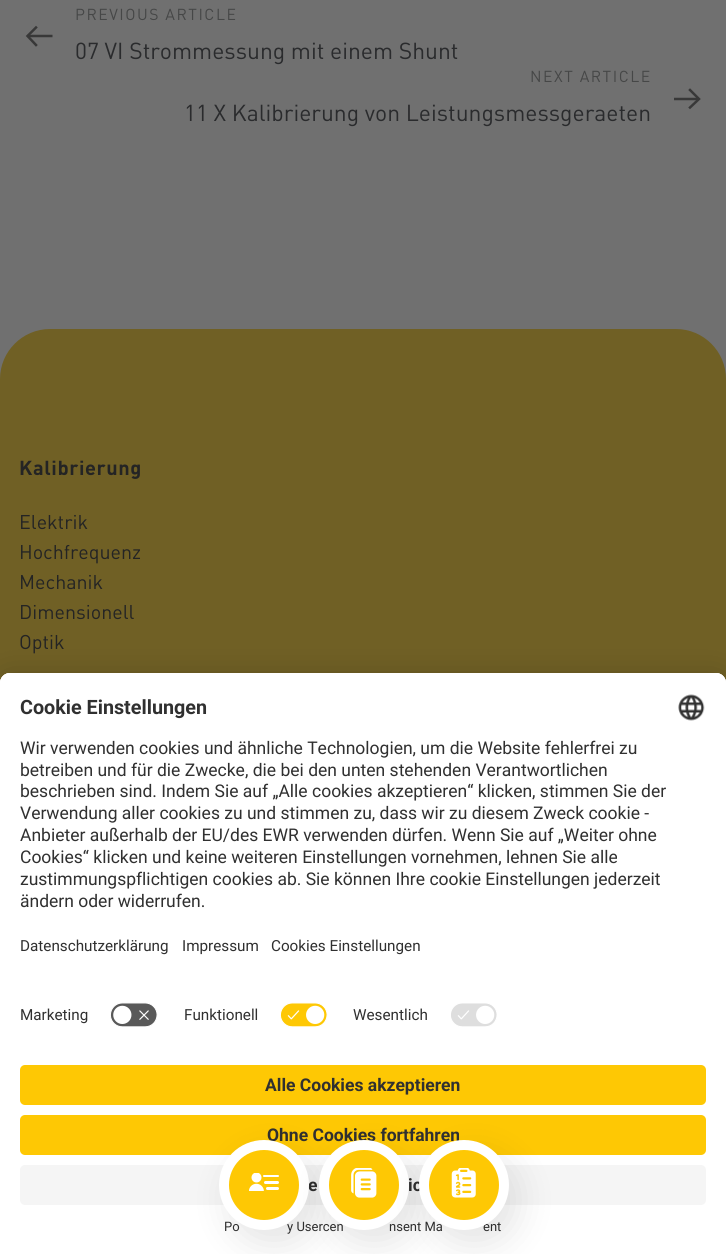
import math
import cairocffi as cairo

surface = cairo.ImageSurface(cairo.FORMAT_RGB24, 726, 1254)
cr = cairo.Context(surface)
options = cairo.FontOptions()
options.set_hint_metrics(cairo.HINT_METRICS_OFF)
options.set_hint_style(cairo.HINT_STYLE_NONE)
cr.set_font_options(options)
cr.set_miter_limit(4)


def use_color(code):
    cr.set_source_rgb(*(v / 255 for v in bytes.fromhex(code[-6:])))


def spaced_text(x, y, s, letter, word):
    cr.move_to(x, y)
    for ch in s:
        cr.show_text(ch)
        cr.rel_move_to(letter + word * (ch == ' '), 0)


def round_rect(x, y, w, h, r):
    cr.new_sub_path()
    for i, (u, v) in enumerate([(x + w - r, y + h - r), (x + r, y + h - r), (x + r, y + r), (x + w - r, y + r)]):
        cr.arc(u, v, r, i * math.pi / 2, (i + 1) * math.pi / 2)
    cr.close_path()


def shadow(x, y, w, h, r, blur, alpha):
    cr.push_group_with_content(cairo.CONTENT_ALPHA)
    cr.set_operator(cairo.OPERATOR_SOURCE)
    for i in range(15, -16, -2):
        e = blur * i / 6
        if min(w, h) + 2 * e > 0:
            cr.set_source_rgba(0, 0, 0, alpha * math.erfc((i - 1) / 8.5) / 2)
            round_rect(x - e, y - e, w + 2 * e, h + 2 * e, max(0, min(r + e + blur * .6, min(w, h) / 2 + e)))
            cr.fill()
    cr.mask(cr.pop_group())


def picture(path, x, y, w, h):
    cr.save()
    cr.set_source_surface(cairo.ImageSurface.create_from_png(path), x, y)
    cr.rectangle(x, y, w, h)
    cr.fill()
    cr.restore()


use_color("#707070")
cr.paint()
cr.select_font_face("DIN")
cr.set_font_size(15)
use_color("#464747")
spaced_text(75, 20, "PREVIOUS ARTICLE", 1.5, 0)
cr.new_path()
cr.move_to(52.5, 36)
cr.line_to(27.5, 36)
use_color("#383838")
cr.set_line_width(2.5)
cr.stroke()
cr.new_path()
cr.move_to(36, 45)
cr.line_to(27.5, 36)
cr.line_to(36, 27.5)
cr.set_line_cap(cairo.LINE_CAP_SQUARE)
cr.stroke()
cr.set_font_size(21.8)
use_color("#2a2b2d")
cr.move_to(75, 59)
cr.show_text("07 VI Strommessung mit einem Shunt")
cr.set_font_size(15)
use_color("#464747")
spaced_text(530, 82, "NEXT ARTICLE", 1.5, 0)
cr.new_path()
cr.move_to(674, 99)
cr.line_to(699, 99)
use_color("#383838")
cr.set_line_cap(cairo.LINE_CAP_BUTT)
cr.stroke()
cr.new_path()
cr.move_to(690, 90)
cr.line_to(699, 99)
cr.line_to(690, 107.5)
cr.set_line_cap(cairo.LINE_CAP_SQUARE)
cr.stroke()
cr.set_font_size(21.8)
use_color("#2a2b2d")
cr.move_to(184, 121)
cr.show_text("11 X Kalibrierung von Leistungsmessgeraeten")
use_color("#706025")
cr.new_path()
cr.move_to(50, 329)
cr.line_to(676, 329)
cr.curve_to(703.5, 329, 726, 351.5, 726, 379)
cr.line_to(726, 455)
cr.line_to(0, 455)
cr.line_to(0, 379)
cr.curve_to(0, 351.5, 22.5, 329, 50, 329)
cr.close_path()
cr.fill()
cr.rectangle(0, 455, 726, 228)
cr.fill()
cr.select_font_face("DIN", cairo.FONT_SLANT_NORMAL, cairo.FONT_WEIGHT_BOLD)
cr.set_font_size(20)
use_color("#242424")
spaced_text(19, 475, "Kalibrierung", 0.6, 0)
cr.select_font_face("DIN")
cr.set_font_size(18.75)
cr.move_to(19, 529)
cr.show_text("Elektrik")
cr.move_to(19, 559)
cr.show_text("Hochfrequenz")
cr.move_to(19, 589)
cr.show_text("Mechanik")
cr.move_to(19, 619)
cr.show_text("Dimensionell")
cr.move_to(19, 649)
cr.show_text("Optik")
use_color("#000000")
shadow(0, 679, 726, 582, 10, 16, 0.22)
use_color("#ffffff")
cr.new_path()
cr.move_to(10, 673)
cr.line_to(716, 673)
cr.curve_to(721.5, 673, 726, 677.5, 726, 683)
cr.line_to(726, 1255)
cr.line_to(0, 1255)
cr.line_to(0, 683)
cr.curve_to(0, 677.5, 4.5, 673, 10, 673)
cr.close_path()
cr.fill()
cr.new_path()
cr.move_to(10, 673)
cr.line_to(716, 673)
cr.curve_to(721.5, 673, 726, 677.5, 726, 683)
cr.line_to(726, 1050)
cr.line_to(0, 1050)
cr.line_to(0, 683)
cr.curve_to(0, 677.5, 4.5, 673, 10, 673)
cr.close_path()
cr.fill()
cr.new_path()
cr.move_to(10, 673)
cr.line_to(716, 673)
cr.curve_to(721.5, 673, 726, 677.5, 726, 683)
cr.line_to(726, 995)
cr.line_to(0, 995)
cr.line_to(0, 683)
cr.curve_to(0, 677.5, 4.5, 673, 10, 673)
cr.close_path()
cr.fill()
cr.select_font_face("Roboto", cairo.FONT_SLANT_NORMAL, cairo.FONT_WEIGHT_BOLD)
cr.set_font_size(19.75)
use_color("#303030")
cr.move_to(20, 714)
cr.show_text("Cookie Einstellungen")
picture("img1.png", 678, 694, 27, 27)
cr.select_font_face("Roboto")
cr.set_font_size(17.5)
cr.move_to(20, 754)
cr.show_text("Wir verwenden cookies und ähnliche Technologien, um die Website fehlerfrei zu")
cr.move_to(20, 776)
cr.show_text("betreiben und für die Zwecke, die bei den unten stehenden Verantwortlichen")
cr.move_to(20, 797)
cr.show_text("beschrieben sind. Indem Sie auf „Alle cookies akzeptieren“ klicken, stimmen Sie der")
cr.move_to(20, 819)
cr.show_text("Verwendung aller cookies zu und stimmen zu, dass wir zu diesem Zweck cookie -")
cr.move_to(20, 841)
cr.show_text("Anbieter außerhalb der EU/des EWR verwenden dürfen. Wenn Sie auf „Weiter ohne")
cr.move_to(20, 863)
cr.show_text("Cookies“ klicken und keine weiteren Einstellungen vornehmen, lehnen Sie alle")
cr.move_to(20, 885)
cr.show_text("zustimmungspflichtigen cookies ab. Sie können Ihre cookie Einstellungen jederzeit")
cr.move_to(20, 907)
cr.show_text("ändern oder widerrufen.")
cr.set_font_size(15.25)
cr.move_to(20, 951)
cr.show_text("Datenschutzerklärung")
cr.move_to(182, 951)
cr.show_text("Impressum")
cr.move_to(271, 951)
cr.show_text("Cookies Einstellungen")
cr.move_to(20, 1020)
cr.show_text("Marketing")
picture("img2.png", 110, 1002, 48, 25)
cr.move_to(184, 1020)
cr.show_text("Funktionell")
picture("img3.png", 280, 1002, 48, 25)
cr.move_to(353, 1020)
cr.show_text("Wesentlich")
picture("img4.png", 451, 1003, 46, 24)
use_color("#fec804")
round_rect(20, 1065, 686, 40, 5)
cr.fill()
cr.select_font_face("Roboto", cairo.FONT_SLANT_NORMAL, cairo.FONT_WEIGHT_BOLD)
cr.set_font_size(17.5)
use_color("#303030")
cr.move_to(265, 1091)
cr.show_text("Alle Cookies akzeptieren")
use_color("#fec804")
round_rect(20, 1115, 686, 40, 5)
cr.fill()
use_color("#303030")
cr.move_to(267, 1141)
cr.show_text("Ohne Cookies fortfahren")
use_color("#f5f5f5")
round_rect(20, 1165, 686, 40, 5)
cr.fill()
use_color("#303030")
cr.move_to(308, 1191)
cr.show_text("e")
cr.move_to(408, 1191)
cr.show_text("ic")
cr.select_font_face("Roboto")
cr.set_font_size(13)
cr.move_to(224, 1231)
cr.show_text("Po")
cr.move_to(287, 1231)
cr.show_text("y Usercen")
cr.move_to(389, 1231)
cr.show_text("nsent Ma")
cr.move_to(483, 1231)
cr.show_text("ent")
use_color("#000000")
shadow(229, 1155, 90, 90, 45, 17.5, 0.1)
use_color("#ffffff")
cr.arc(264, 1185, 45, 0, 2 * math.pi)
cr.fill()
use_color("#fec804")
cr.arc(264, 1185, 35, 0, 2 * math.pi)
cr.fill()
picture("img5.png", 249, 1173, 30, 18)
use_color("#000000")
shadow(329, 1155, 90, 90, 45, 17.5, 0.1)
use_color("#ffffff")
cr.arc(364, 1185, 45, 0, 2 * math.pi)
cr.fill()
use_color("#fec804")
cr.arc(364, 1185, 35, 0, 2 * math.pi)
cr.fill()
picture("img6.png", 351, 1168, 26, 30)
use_color("#000000")
shadow(429, 1155, 90, 90, 45, 17.5, 0.1)
use_color("#ffffff")
cr.arc(464, 1185, 45, 0, 2 * math.pi)
cr.fill()
use_color("#fec804")
cr.arc(464, 1185, 35, 0, 2 * math.pi)
cr.fill()
picture("img7.png", 451, 1168, 25, 30)
surface.write_to_png("result.png")
